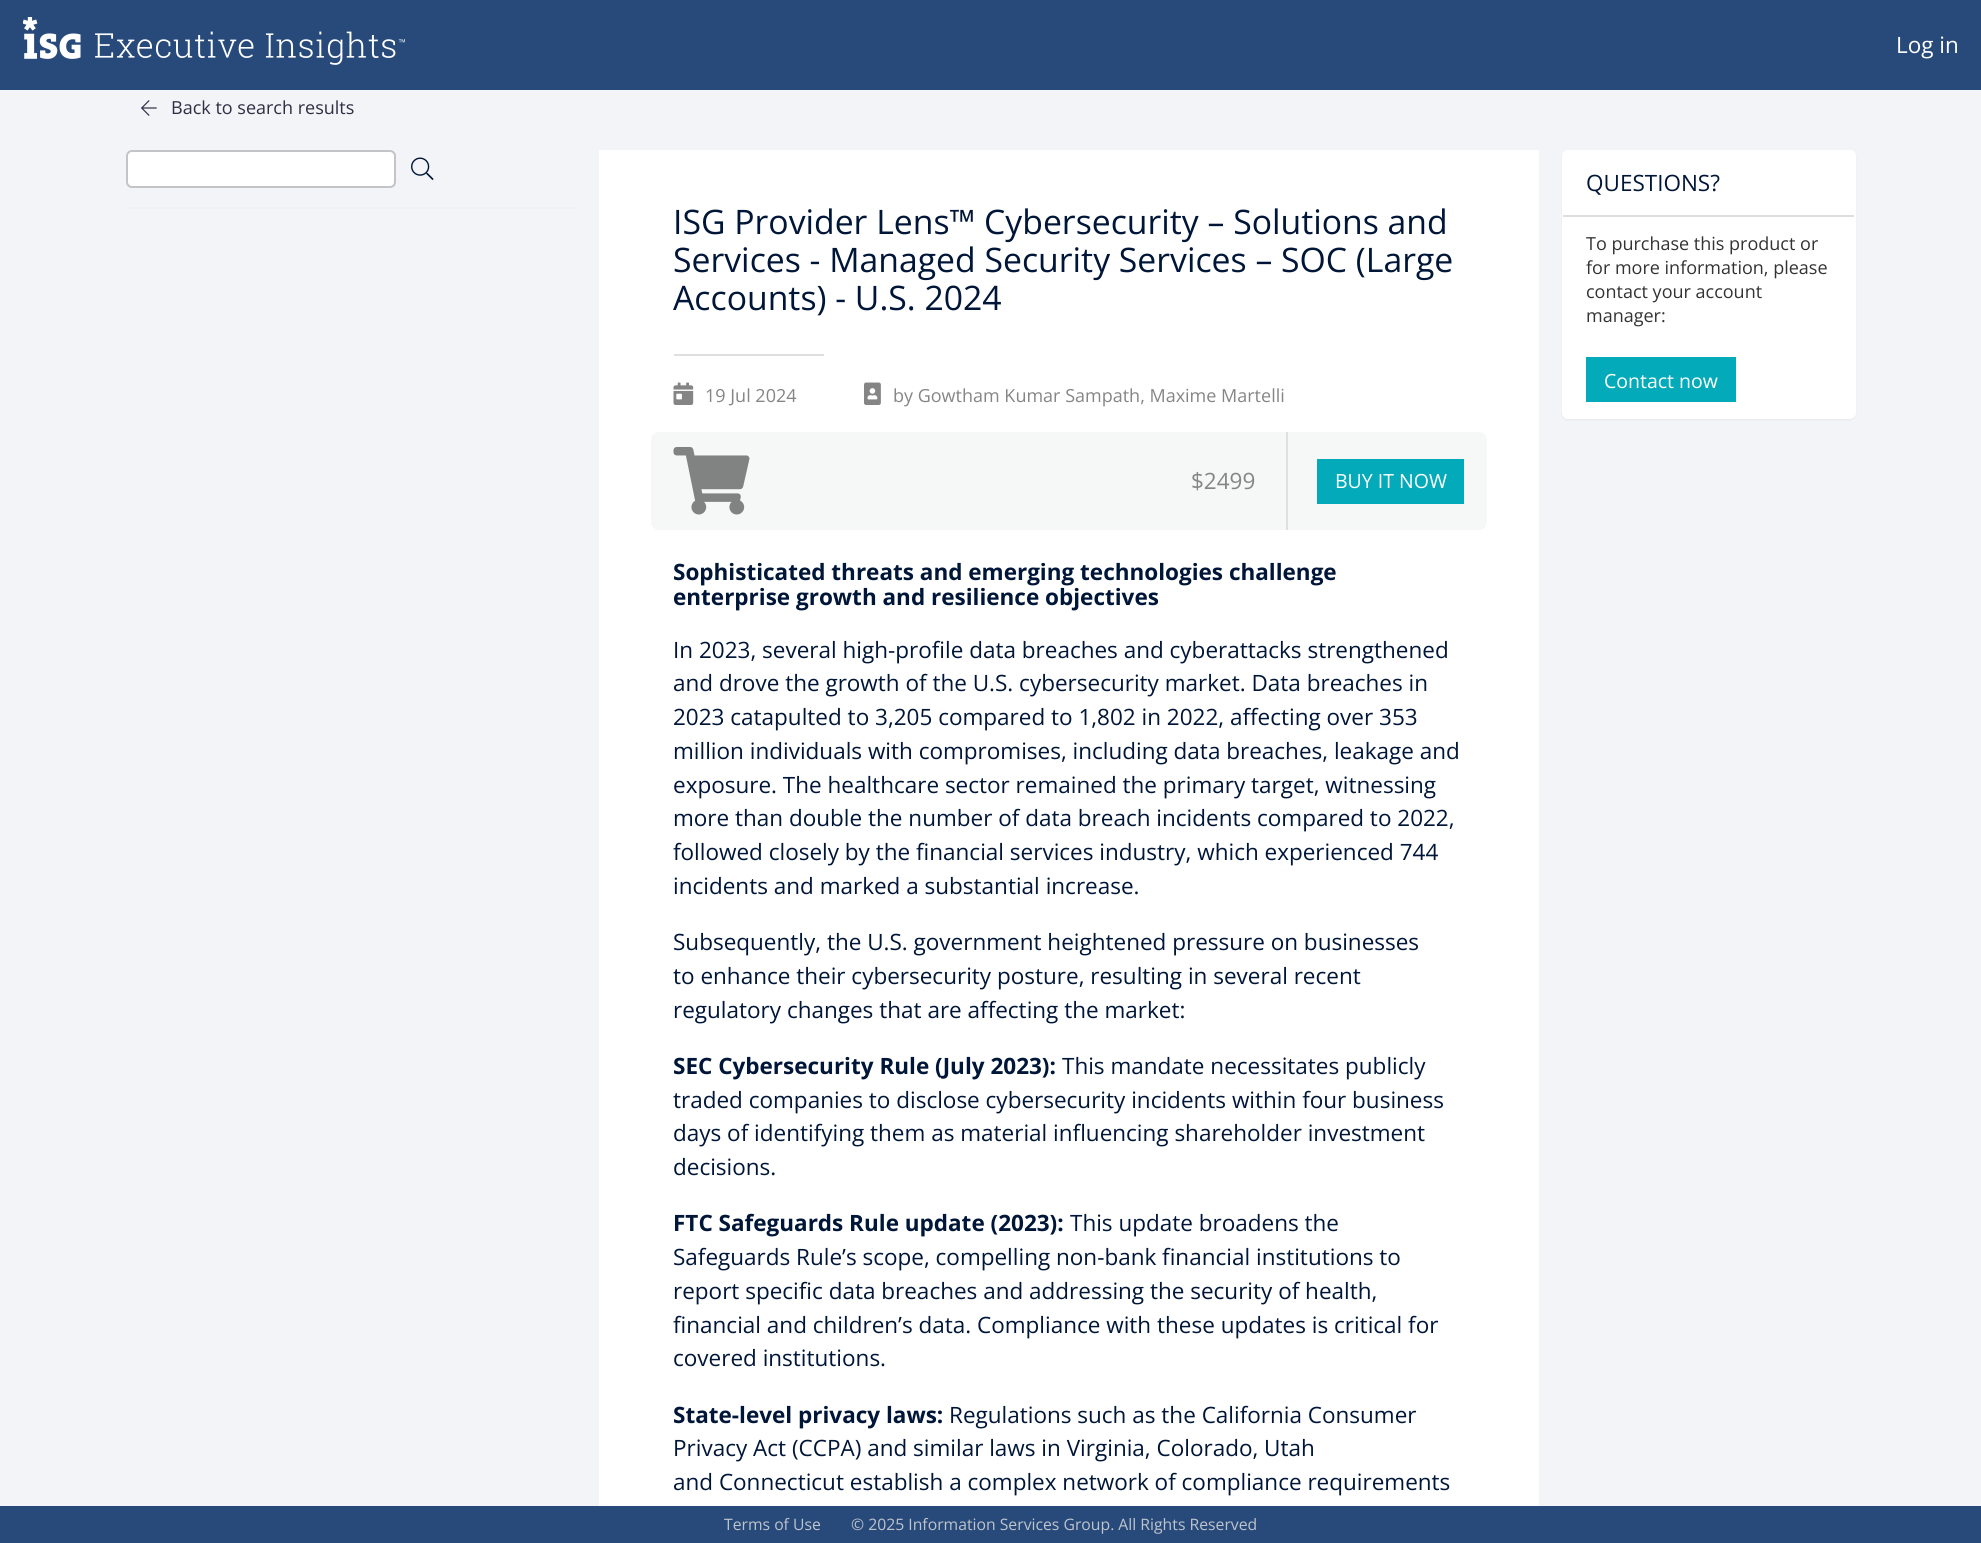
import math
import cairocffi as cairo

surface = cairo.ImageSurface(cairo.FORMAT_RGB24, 1981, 1543)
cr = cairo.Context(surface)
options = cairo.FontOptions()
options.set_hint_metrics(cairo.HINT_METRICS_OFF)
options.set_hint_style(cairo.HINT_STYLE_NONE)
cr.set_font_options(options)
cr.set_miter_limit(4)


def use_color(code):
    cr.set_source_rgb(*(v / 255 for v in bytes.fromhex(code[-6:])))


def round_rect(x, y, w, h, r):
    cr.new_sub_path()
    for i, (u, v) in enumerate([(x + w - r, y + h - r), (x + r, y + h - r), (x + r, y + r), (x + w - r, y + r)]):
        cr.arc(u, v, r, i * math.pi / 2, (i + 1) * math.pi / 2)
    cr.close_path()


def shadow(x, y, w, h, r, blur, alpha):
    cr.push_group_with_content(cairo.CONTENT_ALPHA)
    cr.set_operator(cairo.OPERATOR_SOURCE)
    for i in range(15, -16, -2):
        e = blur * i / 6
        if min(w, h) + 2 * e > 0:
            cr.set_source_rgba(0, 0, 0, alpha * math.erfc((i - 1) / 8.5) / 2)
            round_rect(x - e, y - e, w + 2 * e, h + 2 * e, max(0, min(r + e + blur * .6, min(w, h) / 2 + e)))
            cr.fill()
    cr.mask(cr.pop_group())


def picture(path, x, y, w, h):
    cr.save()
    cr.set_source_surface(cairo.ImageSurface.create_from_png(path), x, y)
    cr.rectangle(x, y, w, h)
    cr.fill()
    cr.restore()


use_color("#284a7b")
cr.paint()
picture("img1.png", 23, 17, 382, 48)
cr.select_font_face("Open Sans")
cr.set_font_size(22.5)
use_color("#ffffff")
cr.move_to(1896, 53)
cr.show_text("Log in")
use_color("#f2f4f7")
cr.rectangle(0, 90, 1981, 1416)
cr.fill()
picture("img2.png", 141, 100, 16, 16)
cr.set_font_size(18)
use_color("#2f2e45")
cr.move_to(171, 114)
cr.show_text("Back to search results")
use_color("#ffffff")
round_rect(127, 151, 268, 36, 5)
cr.fill_preserve()
use_color("#c3c3c8")
cr.stroke()
picture("img3.png", 411, 157, 23, 23)
use_color("#f0f0f0")
cr.rectangle(126, 207, 450, 2)
cr.fill()
use_color("#ffffff")
cr.rectangle(599, 150, 940, 1356)
cr.fill()
cr.set_font_size(33.75)
use_color("#001638")
cr.move_to(673, 234)
cr.show_text("ISG Provider Lens™ Cybersecurity – Solutions and")
cr.move_to(673, 272)
cr.show_text("Services - Managed Security Services – SOC (Large")
cr.move_to(673, 310)
cr.show_text("Accounts) - U.S. 2024")
use_color("#dddfe0")
cr.rectangle(674, 354, 150, 2)
cr.fill()
picture("img4.png", 673, 382, 21, 23)
cr.set_font_size(18)
use_color("#858585")
cr.move_to(705, 402)
cr.show_text("19 Jul 2024")
picture("img5.png", 864, 382, 17, 23)
cr.move_to(893, 402)
cr.show_text("by Gowtham Kumar Sampath, Maxime Martelli")
use_color("#f6f7f7")
round_rect(651, 432, 836, 98, 8)
cr.fill()
picture("img6.png", 673, 447, 77, 68)
cr.set_font_size(22.5)
use_color("#858585")
cr.move_to(1191, 489)
cr.show_text("$2499")
use_color("#dfdfdf")
cr.rectangle(1286, 432, 2, 98)
cr.fill()
use_color("#03abba")
cr.rectangle(1317, 459, 147, 45)
cr.fill()
cr.set_font_size(19.5)
use_color("#ffffff")
cr.move_to(1335, 488)
cr.show_text("BUY IT NOW")
cr.select_font_face("Open Sans", cairo.FONT_SLANT_NORMAL, cairo.FONT_WEIGHT_BOLD)
cr.set_font_size(22.5)
use_color("#001638")
cr.move_to(673, 580)
cr.show_text("Sophisticated threats and emerging technologies challenge")
cr.move_to(673, 605)
cr.show_text("enterprise growth and resilience objectives")
cr.select_font_face("Open Sans")
cr.move_to(673, 658)
cr.show_text("In 2023, several high-profile data breaches and cyberattacks strengthened")
cr.move_to(673, 691)
cr.show_text("and drove the growth of the U.S. cybersecurity market. Data breaches in")
cr.move_to(673, 725)
cr.show_text("2023 catapulted to 3,205 compared to 1,802 in 2022, affecting over 353")
cr.move_to(673, 759)
cr.show_text("million individuals with compromises, including data breaches, leakage and")
cr.move_to(673, 793)
cr.show_text("exposure. The healthcare sector remained the primary target, witnessing")
cr.move_to(673, 826)
cr.show_text("more than double the number of data breach incidents compared to 2022,")
cr.move_to(673, 860)
cr.show_text("followed closely by the financial services industry, which experienced 744")
cr.move_to(673, 894)
cr.show_text("incidents and marked a substantial increase.")
cr.move_to(673, 950)
cr.show_text("Subsequently, the U.S. government heightened pressure on businesses")
cr.move_to(673, 984)
cr.show_text("to enhance their cybersecurity posture, resulting in several recent")
cr.move_to(673, 1018)
cr.show_text("regulatory changes that are affecting the market:")
cr.select_font_face("Open Sans", cairo.FONT_SLANT_NORMAL, cairo.FONT_WEIGHT_BOLD)
cr.move_to(673, 1074)
cr.show_text("SEC Cybersecurity Rule (July 2023):")
cr.select_font_face("Open Sans")
cr.move_to(1062, 1074)
cr.show_text("This mandate necessitates publicly")
cr.move_to(673, 1108)
cr.show_text("traded companies to disclose cybersecurity incidents within four business")
cr.move_to(673, 1141)
cr.show_text("days of identifying them as material influencing shareholder investment")
cr.move_to(673, 1175)
cr.show_text("decisions.")
cr.select_font_face("Open Sans", cairo.FONT_SLANT_NORMAL, cairo.FONT_WEIGHT_BOLD)
cr.move_to(673, 1231)
cr.show_text("FTC Safeguards Rule update (2023):")
cr.select_font_face("Open Sans")
cr.move_to(1070, 1231)
cr.show_text("This update broadens the")
cr.move_to(673, 1265)
cr.show_text("Safeguards Rule’s scope, compelling non-bank financial institutions to")
cr.move_to(673, 1299)
cr.show_text("report specific data breaches and addressing the security of health,")
cr.move_to(673, 1333)
cr.show_text("financial and children’s data. Compliance with these updates is critical for")
cr.move_to(673, 1366)
cr.show_text("covered institutions.")
cr.select_font_face("Open Sans", cairo.FONT_SLANT_NORMAL, cairo.FONT_WEIGHT_BOLD)
cr.move_to(673, 1423)
cr.show_text("State-level privacy laws:")
cr.select_font_face("Open Sans")
cr.move_to(949, 1423)
cr.show_text("Regulations such as the California Consumer")
cr.move_to(673, 1456)
cr.show_text("Privacy Act (CCPA) and similar laws in Virginia, Colorado, Utah")
cr.move_to(673, 1490)
cr.show_text("and Connecticut establish a complex network of compliance requirements")
use_color("#000000")
shadow(1562, 152, 294, 268, 6, 1, 0.05)
use_color("#ffffff")
round_rect(1562, 150, 294, 269, 6)
cr.fill()
use_color("#001638")
cr.move_to(1586, 191)
cr.show_text("QUESTIONS?")
use_color("#dedede")
cr.rectangle(1563, 215, 291, 2)
cr.fill()
cr.set_font_size(18)
use_color("#333333")
cr.move_to(1586, 250)
cr.show_text("To purchase this product or")
cr.move_to(1586, 274)
cr.show_text("for more information, please")
cr.move_to(1586, 298)
cr.show_text("contact your account")
cr.move_to(1586, 322)
cr.show_text("manager:")
use_color("#03abba")
cr.rectangle(1586, 357, 150, 45)
cr.fill()
cr.set_font_size(19.5)
use_color("#ffffff")
cr.move_to(1604, 388)
cr.show_text("Contact now")
cr.set_font_size(15.75)
use_color("#bec4cc")
cr.move_to(724, 1530)
cr.show_text("Terms of Use")
cr.move_to(851, 1530)
cr.show_text("© 2025 Information Services Group. All Rights Reserved")
surface.write_to_png("result.png")
